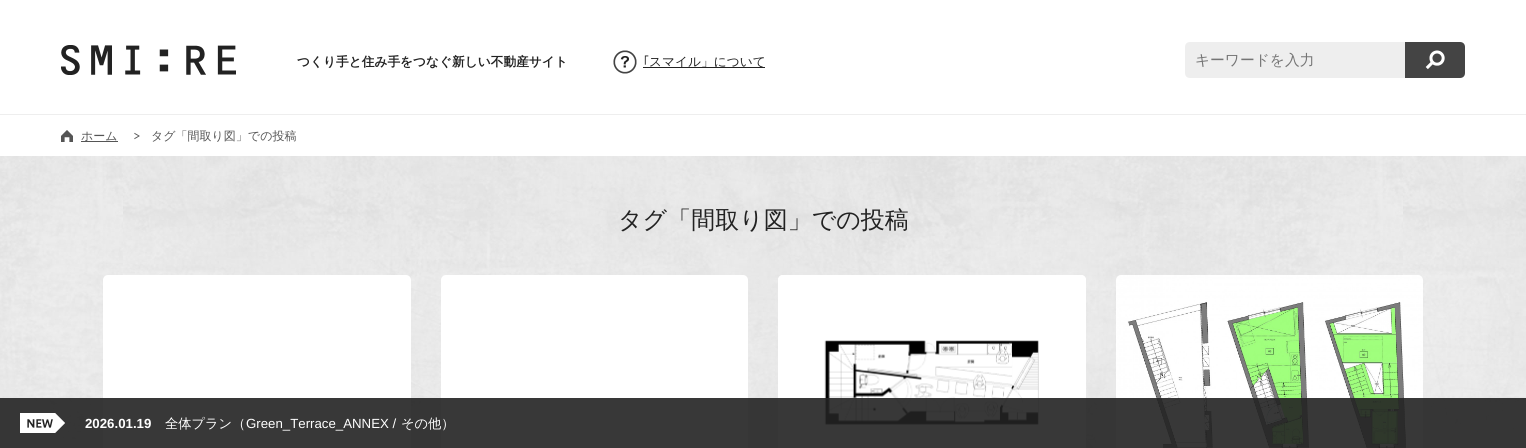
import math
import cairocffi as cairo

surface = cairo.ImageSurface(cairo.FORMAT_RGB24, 1526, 448)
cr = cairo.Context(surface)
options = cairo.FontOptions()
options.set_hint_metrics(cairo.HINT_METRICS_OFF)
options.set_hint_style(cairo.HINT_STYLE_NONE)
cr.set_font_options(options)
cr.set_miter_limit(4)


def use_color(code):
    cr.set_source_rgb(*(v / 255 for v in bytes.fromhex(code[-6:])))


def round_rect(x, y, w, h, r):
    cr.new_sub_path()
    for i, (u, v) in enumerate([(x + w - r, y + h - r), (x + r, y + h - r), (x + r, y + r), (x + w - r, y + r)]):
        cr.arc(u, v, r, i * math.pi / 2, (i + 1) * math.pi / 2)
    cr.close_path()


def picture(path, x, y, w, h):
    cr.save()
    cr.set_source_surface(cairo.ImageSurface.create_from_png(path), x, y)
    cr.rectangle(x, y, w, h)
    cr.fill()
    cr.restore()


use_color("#ffffff")
cr.paint()
use_color("#eeeeee")
cr.rectangle(0, 114, 1526, 1)
cr.fill()
picture("img1.png", 61, 45, 175, 30)
cr.select_font_face("WenQuanYi Zen Hei", cairo.FONT_SLANT_NORMAL, cairo.FONT_WEIGHT_BOLD)
cr.set_font_size(12.7)
use_color("#222222")
cr.move_to(297, 66)
cr.show_text("つくり手と住み手をつなぐ新しい不動産サイト")
picture("img2.png", 613, 50, 24, 24)
cr.select_font_face("IPAGothic")
cr.move_to(643, 66)
cr.show_text("｢")
cr.rectangle(643, 67, 122, 1)
cr.fill()
cr.select_font_face("WenQuanYi Zen Hei Medium")
cr.move_to(649, 66)
cr.show_text("スマイル」について")
use_color("#eeeeee")
cr.new_path()
cr.move_to(1190, 42)
cr.line_to(1405, 42)
cr.line_to(1405, 78)
cr.line_to(1190, 78)
cr.curve_to(1187, 78, 1185, 76, 1185, 73)
cr.line_to(1185, 47)
cr.curve_to(1185, 44, 1187, 42, 1190, 42)
cr.close_path()
cr.fill()
cr.set_font_size(14.75)
use_color("#757575")
cr.move_to(1195, 65)
cr.show_text("キーワードを入力")
use_color("#444444")
cr.new_path()
cr.move_to(1405, 42)
cr.line_to(1460, 42)
cr.curve_to(1463, 42, 1465, 44, 1465, 47)
cr.line_to(1465, 73)
cr.curve_to(1465, 76, 1463, 78, 1460, 78)
cr.line_to(1405, 78)
cr.close_path()
cr.fill()
picture("img3.png", 1425, 50, 20, 20)
picture("img4.png", 61, 130, 12, 12)
use_color("#555555")
cr.rectangle(81, 141, 37, 1)
cr.fill()
cr.set_font_size(12)
cr.move_to(81, 140)
cr.show_text("ホーム")
picture("img5.png", 134, 132, 6, 8)
cr.move_to(151, 140)
cr.show_text("タグ「間取り図」での投稿")
picture("img6.png", 0, 156, 1526, 292)
cr.set_font_size(24)
use_color("#222222")
cr.move_to(618, 228)
cr.show_text("タグ「間取り図」での投稿")
use_color("#ffffff")
round_rect(103, 275, 308, 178, 5)
cr.fill()
round_rect(441, 275, 307, 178, 5)
cr.fill()
round_rect(778, 275, 308, 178, 5)
cr.fill()
picture("img7.png", 778, 275, 308, 150)
picture("img8.png", 1116, 275, 307, 173)
cr.set_source_rgba(0.137, 0.137, 0.137, 0.9)
cr.rectangle(0, 398, 1526, 50)
cr.fill()
picture("img9.png", 20, 413, 45, 20)
cr.select_font_face("Liberation Sans", cairo.FONT_SLANT_NORMAL, cairo.FONT_WEIGHT_BOLD)
cr.set_font_size(13.25)
use_color("#ffffff")
cr.move_to(85, 428)
cr.show_text("2026.01.19")
cr.select_font_face("WenQuanYi Zen Hei Medium")
cr.move_to(165, 428)
cr.show_text("全体プラン（")
cr.select_font_face("Liberation Sans")
cr.move_to(246, 428)
cr.show_text("Green_Terrace_ANNEX /")
cr.select_font_face("WenQuanYi Zen Hei Medium")
cr.move_to(401, 428)
cr.show_text("その他）")
surface.write_to_png("result.png")
